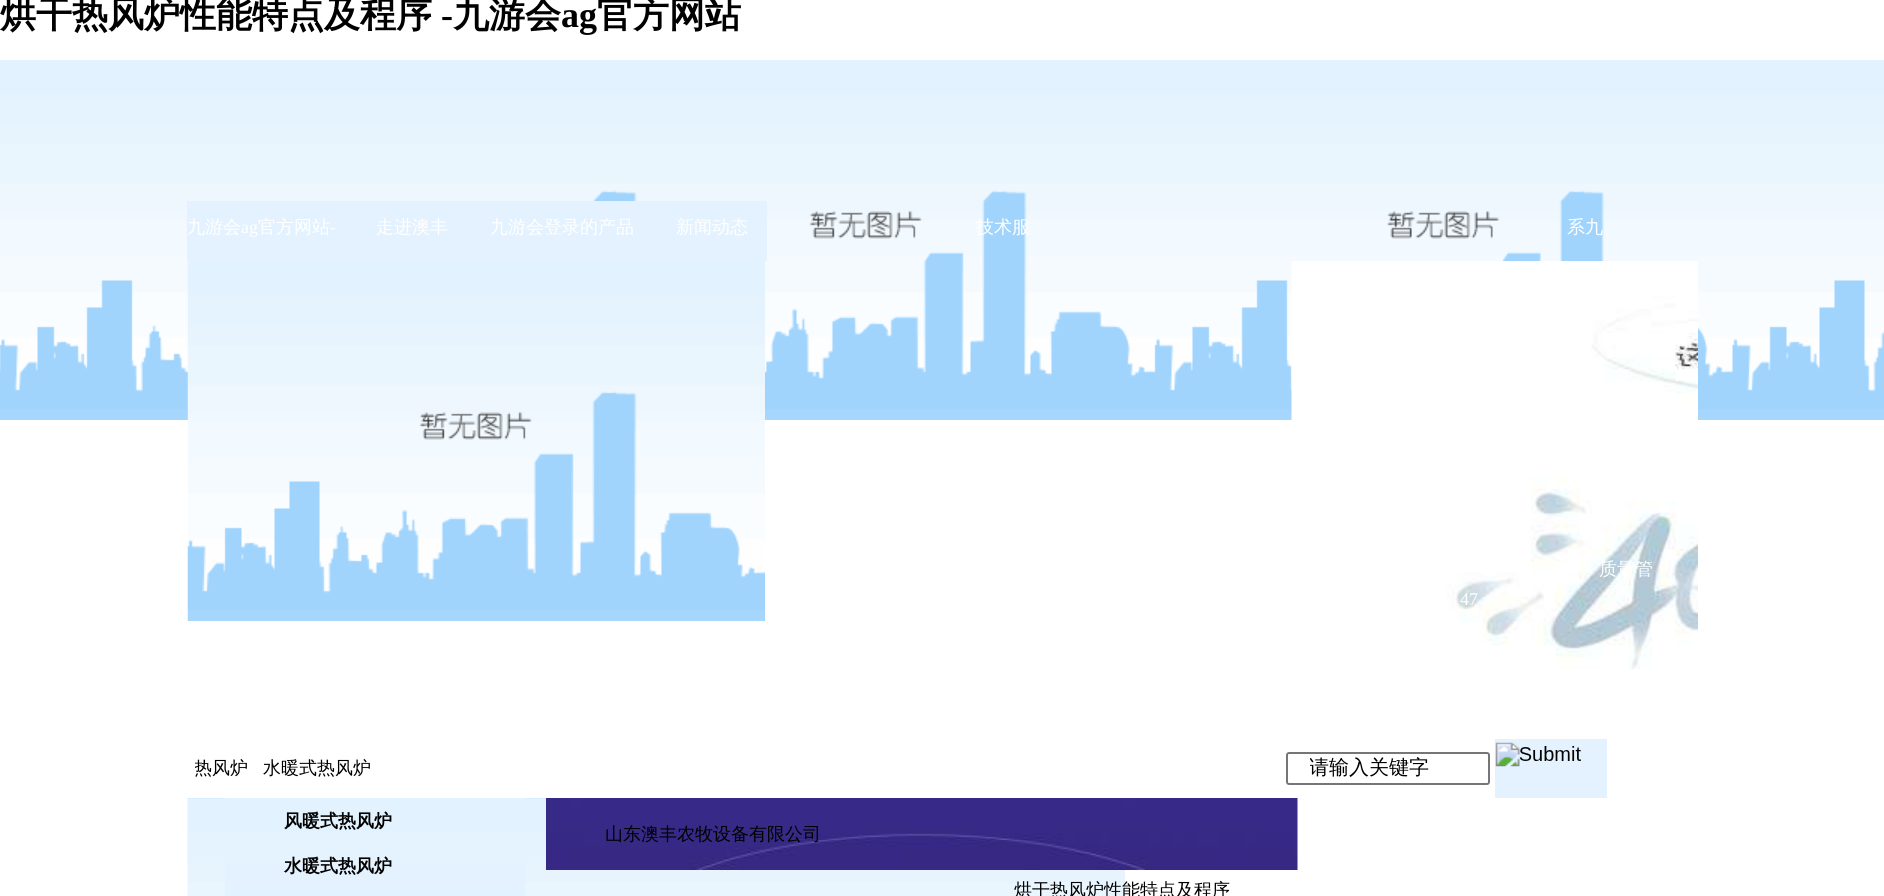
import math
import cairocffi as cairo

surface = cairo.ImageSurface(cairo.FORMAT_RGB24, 1884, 896)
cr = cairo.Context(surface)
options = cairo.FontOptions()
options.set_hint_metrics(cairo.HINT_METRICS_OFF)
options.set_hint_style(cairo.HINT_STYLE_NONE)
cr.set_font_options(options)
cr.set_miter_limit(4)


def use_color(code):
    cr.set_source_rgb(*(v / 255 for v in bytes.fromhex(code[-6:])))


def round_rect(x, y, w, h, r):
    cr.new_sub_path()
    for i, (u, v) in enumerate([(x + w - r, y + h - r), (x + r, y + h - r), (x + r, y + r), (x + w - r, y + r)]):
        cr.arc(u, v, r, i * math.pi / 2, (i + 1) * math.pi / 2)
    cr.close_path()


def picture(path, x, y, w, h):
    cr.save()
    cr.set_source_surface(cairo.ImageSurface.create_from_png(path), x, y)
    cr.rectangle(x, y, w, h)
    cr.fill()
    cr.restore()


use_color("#ffffff")
cr.paint()
cr.select_font_face("WenQuanYi Zen Hei", cairo.FONT_SLANT_NORMAL, cairo.FONT_WEIGHT_BOLD)
cr.set_font_size(36)
use_color("#000000")
cr.move_to(0, 27)
cr.show_text("烘干热风炉性能特点及程序")
cr.select_font_face("Liberation Serif", cairo.FONT_SLANT_NORMAL, cairo.FONT_WEIGHT_BOLD)
cr.move_to(441, 27)
cr.show_text("-")
cr.select_font_face("WenQuanYi Zen Hei", cairo.FONT_SLANT_NORMAL, cairo.FONT_WEIGHT_BOLD)
cr.move_to(453, 27)
cr.show_text("九游会")
cr.select_font_face("Liberation Serif", cairo.FONT_SLANT_NORMAL, cairo.FONT_WEIGHT_BOLD)
cr.move_to(561, 27)
cr.show_text("ag")
cr.select_font_face("WenQuanYi Zen Hei", cairo.FONT_SLANT_NORMAL, cairo.FONT_WEIGHT_BOLD)
cr.move_to(597, 27)
cr.show_text("官方网站")
picture("img1.png", 0, 60, 1884, 360)
picture("img2.png", 405, 190, 232, 11)
use_color("#e3f2fe")
cr.rectangle(187, 201, 580, 60)
cr.fill()
cr.select_font_face("WenQuanYi Zen Hei Medium")
cr.set_font_size(18)
use_color("#ffffff")
cr.move_to(187, 233)
cr.show_text("九游会")
cr.select_font_face("Liberation Serif")
cr.move_to(241, 233)
cr.show_text("ag")
cr.select_font_face("WenQuanYi Zen Hei Medium")
cr.move_to(258, 233)
cr.show_text("官方网站")
cr.select_font_face("Liberation Serif")
cr.move_to(330, 233)
cr.show_text("-")
cr.select_font_face("WenQuanYi Zen Hei Medium")
cr.move_to(376, 233)
cr.show_text("走进澳丰")
cr.move_to(490, 233)
cr.show_text("九游会登录的产品")
cr.move_to(676, 233)
cr.show_text("新闻动态")
cr.move_to(976, 233)
cr.show_text("技术服")
cr.move_to(1567, 233)
cr.show_text("系九")
picture("img3.png", 187, 261, 578, 360)
picture("img4.png", 1291, 261, 407, 408)
cr.move_to(1599, 575)
cr.show_text("质量管")
cr.select_font_face("Liberation Serif")
cr.move_to(1460, 605)
cr.show_text("47")
cr.save()
cr.rectangle(195, 740, 54, 58)
cr.clip()
cr.select_font_face("WenQuanYi Zen Hei Medium")
use_color("#000000")
cr.move_to(194, 774)
cr.show_text("热风炉")
cr.restore()
cr.select_font_face("WenQuanYi Zen Hei Medium")
use_color("#000000")
cr.move_to(263, 774)
cr.show_text("水暖式热风炉")
round_rect(1287, 753, 202, 31, 2)
use_color("#767676")
cr.stroke()
cr.save()
cr.rectangle(1310, 755, 174, 27)
cr.clip()
cr.set_font_size(20)
use_color("#000000")
cr.move_to(1309, 774)
cr.show_text("请输入关键字")
cr.restore()
use_color("#e3f2fe")
cr.rectangle(1495, 739, 112, 59)
cr.fill()
picture("img5.png", 1495, 742, 86, 25)
picture("img6.png", 187, 798, 579, 98)
use_color("#e5f4fe")
cr.rectangle(187, 798, 1, 1)
cr.fill()
use_color("#e2f2fe")
cr.rectangle(225, 798, 300, 1)
cr.fill()
cr.select_font_face("WenQuanYi Zen Hei", cairo.FONT_SLANT_NORMAL, cairo.FONT_WEIGHT_BOLD)
use_color("#000000")
cr.move_to(284, 827)
cr.show_text("风暖式热风炉")
use_color("#e3f2fe")
cr.rectangle(225, 863, 300, 25)
cr.fill()
use_color("#000000")
cr.move_to(284, 872)
cr.show_text("水暖式热风炉")
use_color("#e2f2fe")
cr.rectangle(225, 888, 300, 8)
cr.fill()
picture("img7.png", 766, 870, 359, 26)
picture("img8.png", 546, 798, 752, 72)
cr.select_font_face("WenQuanYi Zen Hei Medium")
use_color("#000000")
cr.move_to(605, 840)
cr.show_text("山东澳丰农牧设备有限公司")
cr.move_to(1014, 896)
cr.show_text("烘干热风炉性能特点及程序")
surface.write_to_png("result.png")
